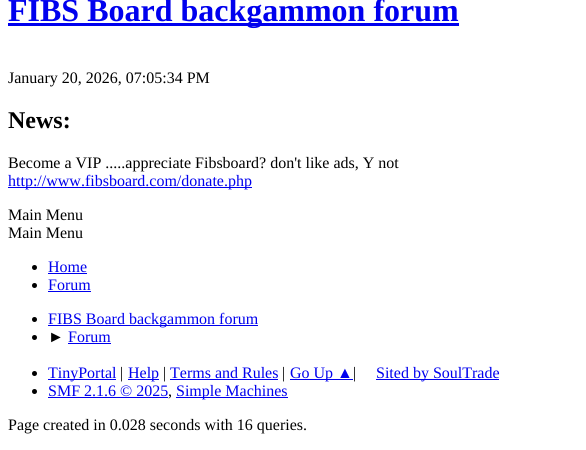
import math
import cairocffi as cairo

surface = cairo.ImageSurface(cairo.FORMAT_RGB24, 586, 450)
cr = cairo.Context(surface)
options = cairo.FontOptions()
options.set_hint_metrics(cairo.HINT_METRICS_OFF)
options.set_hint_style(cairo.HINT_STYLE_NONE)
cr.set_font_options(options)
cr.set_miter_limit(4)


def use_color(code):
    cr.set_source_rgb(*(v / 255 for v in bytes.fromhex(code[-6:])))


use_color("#ffffff")
cr.paint()
use_color("#0000ee")
cr.rectangle(8, 23, 451, 3)
cr.fill()
cr.select_font_face("Liberation Serif", cairo.FONT_SLANT_NORMAL, cairo.FONT_WEIGHT_BOLD)
cr.set_font_size(32)
cr.move_to(8, 21)
cr.show_text("FIBS Board backgammon forum")
cr.select_font_face("Liberation Serif")
cr.set_font_size(16)
use_color("#000000")
cr.move_to(8, 83)
cr.show_text("January 20, 2026, 07:05:34 PM")
cr.select_font_face("Liberation Serif", cairo.FONT_SLANT_NORMAL, cairo.FONT_WEIGHT_BOLD)
cr.set_font_size(24)
cr.move_to(8, 128)
cr.show_text("News:")
cr.select_font_face("Liberation Serif")
cr.set_font_size(16)
cr.move_to(8, 168)
cr.show_text("Become a VIP .....appreciate Fibsboard? don't like ads, Y not")
use_color("#0000ee")
cr.rectangle(8, 187, 244, 1)
cr.fill()
cr.move_to(8, 186)
cr.show_text("http://www.fibsboard.com/donate.php")
use_color("#000000")
cr.move_to(8, 220)
cr.show_text("Main Menu")
cr.move_to(8, 238)
cr.show_text("Main Menu")
cr.new_path()
cr.arc(34.5, 267.5, 2.5, 0, 2 * math.pi)
cr.fill()
use_color("#0000ee")
cr.move_to(48, 272)
cr.show_text("Home")
cr.rectangle(48, 273, 39, 1)
cr.fill()
use_color("#000000")
cr.arc(34.5, 285.5, 2.5, 0, 2 * math.pi)
cr.fill()
use_color("#0000ee")
cr.move_to(48, 290)
cr.show_text("Forum")
cr.rectangle(48, 291, 43, 1)
cr.fill()
use_color("#000000")
cr.arc(34.5, 319.5, 2.5, 0, 2 * math.pi)
cr.fill()
use_color("#0000ee")
cr.rectangle(48, 325, 210, 1)
cr.fill()
cr.move_to(48, 324)
cr.show_text("FIBS Board backgammon forum")
use_color("#000000")
cr.new_path()
cr.arc(34.5, 337.5, 2.5, 0, 2 * math.pi)
cr.fill()
cr.move_to(48, 342)
cr.show_text("►")
use_color("#0000ee")
cr.move_to(68, 342)
cr.show_text("Forum")
cr.rectangle(68, 343, 43, 1)
cr.fill()
use_color("#000000")
cr.arc(34.5, 373.5, 2.5, 0, 2 * math.pi)
cr.fill()
use_color("#0000ee")
cr.rectangle(48, 379, 68, 1)
cr.fill()
cr.move_to(48, 378)
cr.show_text("TinyPortal")
use_color("#000000")
cr.move_to(120, 378)
cr.show_text("|")
use_color("#0000ee")
cr.rectangle(128, 379, 31, 1)
cr.fill()
cr.move_to(128, 378)
cr.show_text("Help")
use_color("#000000")
cr.move_to(163, 378)
cr.show_text("|")
use_color("#0000ee")
cr.move_to(170, 378)
cr.show_text("Terms and Rules")
cr.rectangle(170, 379, 108, 1)
cr.fill()
use_color("#000000")
cr.move_to(282, 378)
cr.show_text("|")
use_color("#0000ee")
cr.rectangle(290, 379, 63, 1)
cr.fill()
cr.move_to(290, 378)
cr.show_text("Go Up ▲")
use_color("#000000")
cr.move_to(353, 378)
cr.show_text("|")
use_color("#0000ee")
cr.rectangle(376, 379, 123, 1)
cr.fill()
cr.move_to(376, 378)
cr.show_text("Sited by SoulTrade")
use_color("#000000")
cr.new_path()
cr.arc(34.5, 391.5, 2.5, 0, 2 * math.pi)
cr.fill()
use_color("#0000ee")
cr.move_to(48, 396)
cr.show_text("SMF 2.1.6 © 2025")
cr.rectangle(48, 397, 120, 1)
cr.fill()
cr.rectangle(176, 397, 112, 1)
cr.fill()
cr.move_to(176, 396)
cr.show_text("Simple Machines")
use_color("#000000")
cr.move_to(168, 396)
cr.show_text(",")
cr.move_to(8, 430)
cr.show_text("Page created in 0.028 seconds with 16 queries.")
surface.write_to_png("result.png")
